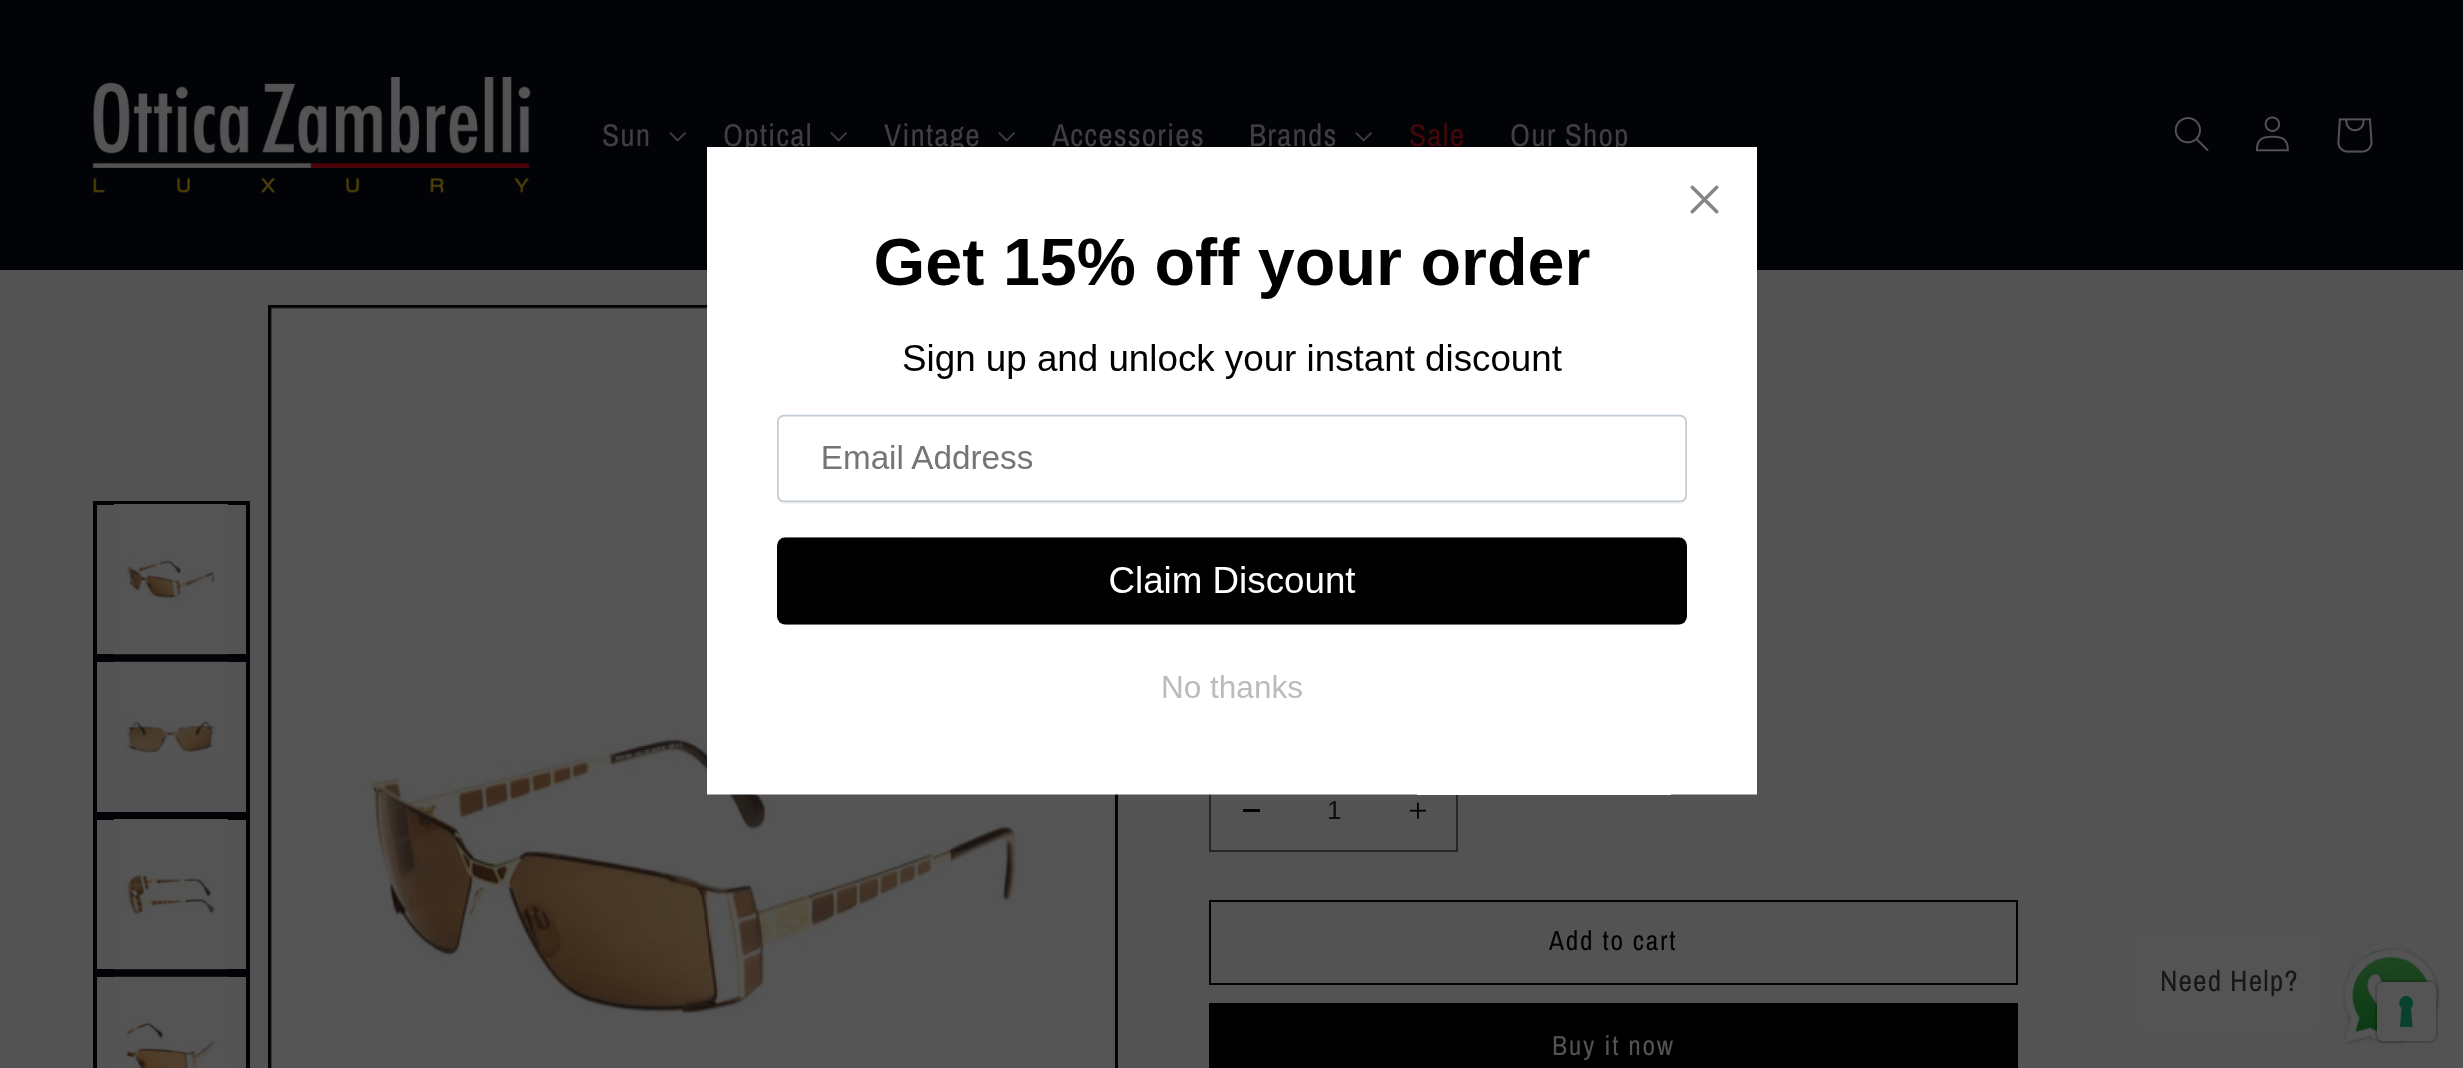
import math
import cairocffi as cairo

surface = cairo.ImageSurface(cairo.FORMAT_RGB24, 2463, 1068)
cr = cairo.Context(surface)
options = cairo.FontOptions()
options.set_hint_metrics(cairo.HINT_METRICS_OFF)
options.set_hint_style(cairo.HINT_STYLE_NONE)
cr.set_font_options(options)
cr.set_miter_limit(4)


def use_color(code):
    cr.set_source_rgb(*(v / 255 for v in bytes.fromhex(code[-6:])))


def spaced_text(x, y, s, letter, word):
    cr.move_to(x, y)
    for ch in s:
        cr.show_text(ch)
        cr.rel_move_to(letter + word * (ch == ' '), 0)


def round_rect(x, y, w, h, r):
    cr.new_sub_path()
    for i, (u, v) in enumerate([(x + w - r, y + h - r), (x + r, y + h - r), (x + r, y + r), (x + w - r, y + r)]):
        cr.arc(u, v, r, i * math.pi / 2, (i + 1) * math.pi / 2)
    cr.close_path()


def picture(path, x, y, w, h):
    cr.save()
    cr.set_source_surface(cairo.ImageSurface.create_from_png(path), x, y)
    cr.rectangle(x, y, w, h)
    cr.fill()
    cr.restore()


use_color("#fcfcfc")
cr.paint()
use_color("#020912")
cr.rectangle(0, 0, 2463, 270)
cr.fill()
picture("img2.png", 92, 77, 439, 116)
cr.select_font_face("Archivo Narrow")
cr.set_font_size(31.5)
use_color("#bebfc2")
spaced_text(602, 146, "Sun", 1.1, 0)
picture("img3.png", 669, 132, 17, 10)
spaced_text(723, 146, "Optical", 1.1, 0)
picture("img3.png", 830, 132, 17, 10)
spaced_text(884, 146, "Vintage", 1.1, 0)
picture("img3.png", 998, 132, 17, 10)
spaced_text(1052, 146, "Accessories", 1.1, 0)
spaced_text(1249, 146, "Brands", 1.1, 0)
picture("img3.png", 1355, 132, 17, 10)
use_color("#ca151b")
spaced_text(1409, 146, "Sale", 1.1, 0)
use_color("#bebfc2")
spaced_text(1510, 146, "Our Shop", 1.1, 0)
picture("img4.png", 2174, 117, 35, 34)
picture("img5.png", 2255, 116, 34, 36)
picture("img6.png", 2337, 118, 36, 35)
cr.rectangle(95, 503, 153, 153)
use_color("#020912")
cr.set_line_width(4)
cr.stroke()
picture("img7.png", 114, 504, 114, 151)
cr.rectangle(95, 660, 153, 154)
cr.stroke()
picture("img8.png", 114, 661, 114, 93)
cr.rectangle(95, 818, 153, 153)
cr.stroke()
picture("img9.png", 114, 819, 114, 151)
cr.rectangle(95, 975, 153, 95)
cr.stroke()
picture("img10.png", 114, 976, 114, 92)
cr.rectangle(270, 307, 846, 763)
cr.stroke()
picture("img11.png", 270, 307, 845, 761)
cr.rectangle(1243, 809, 17, 3)
cr.fill()
picture("img12.png", 1409, 802, 17, 17)
cr.rectangle(1210, 768, 247, 83)
use_color("#72767b")
cr.set_line_width(2)
cr.stroke()
cr.select_font_face("Liberation Sans")
cr.set_font_size(26)
use_color("#282d35")
cr.move_to(1327, 819)
cr.show_text("1")
cr.rectangle(1210, 901, 807, 83)
use_color("#020912")
cr.stroke()
cr.select_font_face("Archivo Narrow")
cr.set_font_size(27.5)
spaced_text(1549, 950, "Add to cart", 1.75, 0)
use_color("#000000")
cr.rectangle(1209, 1003, 809, 65)
cr.fill()
use_color("#fcfcfc")
spaced_text(1552, 1055, "Buy it now", 1.75, 0)
use_color("#ffffff")
round_rect(2133, 929, 191, 105, 18)
cr.fill()
cr.set_font_size(29.5)
use_color("#41474d")
spaced_text(2160, 991, "Need Help?", 1.1, 0)
picture("img13.png", 2347, 943, 69, 77)
picture("img14.png", 2342, 946, 99, 100)
round_rect(2376, 981, 61, 61, 8)
cr.set_source_rgba(0, 0, 0, 0.15)
cr.stroke()
use_color("#ffffff")
round_rect(2377, 982, 59, 59, 7)
cr.fill()
use_color("#1cc691")
cr.set_fill_rule(cairo.FILL_RULE_EVEN_ODD)
cr.new_path()
cr.move_to(2406, 996)
cr.curve_to(2412.5, 996, 2415.5, 1004, 2411, 1008)
cr.line_to(2412.5, 1027)
cr.line_to(2400, 1027)
cr.line_to(2401.5, 1008)
cr.curve_to(2397, 1004, 2400, 996, 2406, 996)
cr.close_path()
cr.fill()
picture("img1.png", 0, 0, 2463, 1068)
surface.write_to_png("result.png")
